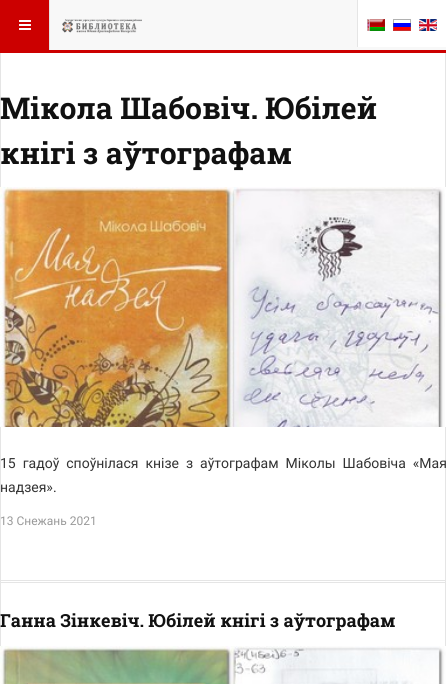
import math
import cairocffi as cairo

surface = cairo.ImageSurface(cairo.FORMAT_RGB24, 446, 684)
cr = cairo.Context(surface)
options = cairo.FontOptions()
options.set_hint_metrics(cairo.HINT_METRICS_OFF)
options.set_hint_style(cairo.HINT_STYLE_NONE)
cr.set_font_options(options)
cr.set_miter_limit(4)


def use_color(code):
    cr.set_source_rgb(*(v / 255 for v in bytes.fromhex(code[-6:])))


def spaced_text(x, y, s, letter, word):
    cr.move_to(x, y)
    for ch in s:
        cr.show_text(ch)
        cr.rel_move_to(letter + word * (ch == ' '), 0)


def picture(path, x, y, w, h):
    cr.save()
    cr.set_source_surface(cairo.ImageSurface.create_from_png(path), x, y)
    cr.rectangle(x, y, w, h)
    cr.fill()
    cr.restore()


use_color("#ffffff")
cr.paint()
cr.rectangle(0.5, 37.5, 445, 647)
use_color("#e5e5e5")
cr.set_line_width(1)
cr.stroke()
use_color("#f8f8f8")
cr.rectangle(50, 0, 396, 50)
cr.fill()
use_color("#cc0000")
cr.rectangle(0, 50, 446, 3)
cr.fill()
cr.rectangle(0, 0, 49, 50)
cr.fill()
use_color("#e5e5e5")
cr.rectangle(49, 0, 1, 50)
cr.fill()
picture("img1.png", 19, 20, 12, 10)
picture("img2.png", 62, 19, 80, 15)
use_color("#ffffff")
cr.rectangle(358, 0, 88, 47)
cr.fill()
use_color("#e5e5e5")
cr.rectangle(357, 0, 1, 47)
cr.fill()
picture("img3.png", 367, 19, 18, 12)
picture("img4.png", 393, 19, 18, 12)
picture("img5.png", 419, 19, 18, 12)
cr.rectangle(0, 580, 446, 1)
cr.fill()
cr.rectangle(0, 582, 446, 1)
cr.fill()
cr.select_font_face("Roboto Slab", cairo.FONT_SLANT_NORMAL, cairo.FONT_WEIGHT_BOLD)
cr.set_font_size(30)
use_color("#111111")
cr.move_to(0, 119)
cr.show_text("Мікола Шабовіч. Юбілей")
cr.move_to(0, 164)
cr.show_text("кнігі з аўтографам")
picture("img6.png", 0, 187, 446, 240)
cr.select_font_face("Roboto")
cr.set_font_size(14)
use_color("#333333")
spaced_text(0, 468, "15 гадоў споўнілася кнізе з аўтографам Міколы Шабовіча «Мая", 0, 3.5)
cr.move_to(0, 492)
cr.show_text("надзея».")
cr.set_font_size(12)
use_color("#999999")
cr.move_to(0, 525)
cr.show_text("13 Снежань 2021")
cr.select_font_face("Roboto Slab", cairo.FONT_SLANT_NORMAL, cairo.FONT_WEIGHT_BOLD)
cr.set_font_size(18)
use_color("#111111")
cr.move_to(0, 627)
cr.show_text("Ганна Зінкевіч. Юбілей кнігі з аўтографам")
picture("img7.png", 0, 646, 446, 38)
surface.write_to_png("result.png")
